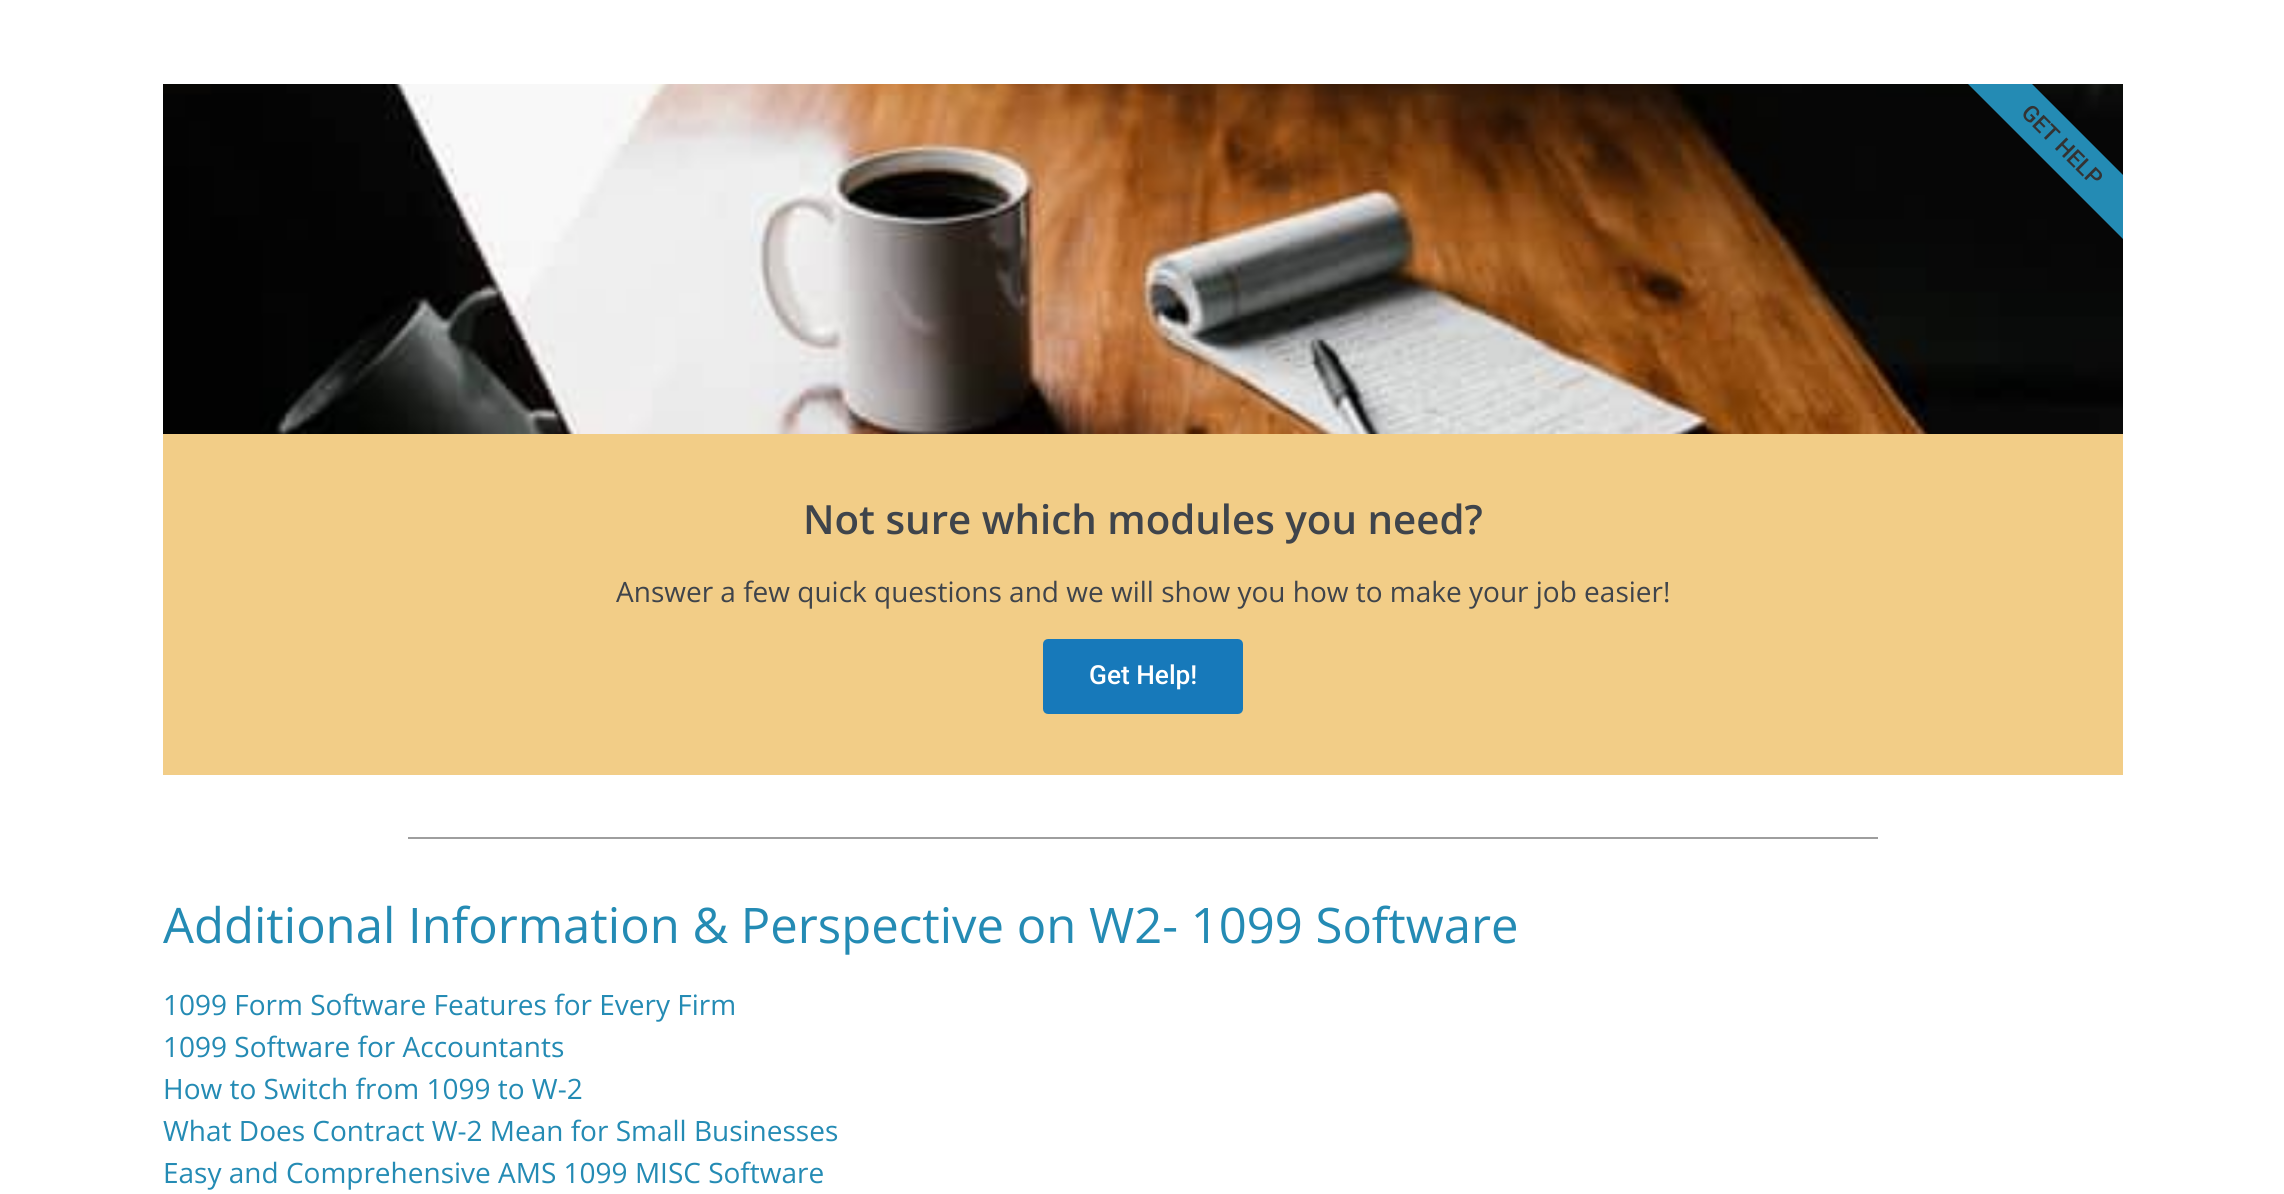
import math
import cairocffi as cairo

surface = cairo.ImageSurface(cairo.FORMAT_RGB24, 2284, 1194)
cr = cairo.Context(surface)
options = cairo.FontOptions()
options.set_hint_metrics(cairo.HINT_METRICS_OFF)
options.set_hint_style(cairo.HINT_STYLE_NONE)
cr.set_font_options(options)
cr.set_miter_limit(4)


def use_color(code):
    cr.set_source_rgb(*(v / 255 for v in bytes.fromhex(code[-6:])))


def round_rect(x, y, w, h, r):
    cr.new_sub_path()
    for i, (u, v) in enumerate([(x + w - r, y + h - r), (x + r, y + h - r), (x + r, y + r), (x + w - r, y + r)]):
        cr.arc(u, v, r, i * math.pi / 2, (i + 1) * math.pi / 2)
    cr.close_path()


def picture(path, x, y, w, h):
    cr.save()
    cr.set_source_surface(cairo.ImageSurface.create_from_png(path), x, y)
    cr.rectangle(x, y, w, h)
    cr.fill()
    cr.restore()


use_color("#ffffff")
cr.paint()
picture("img1.png", 163, 84, 1960, 350)
use_color("#248bb4")
cr.new_path()
cr.move_to(2123, 239)
cr.line_to(1968, 84)
cr.line_to(2032, 84)
cr.line_to(2123, 175)
cr.close_path()
cr.fill()
cr.select_font_face("Roboto Medium")
cr.set_font_size(22.75)
use_color("#333333")
cr.save()
cr.translate(2020, 114)
cr.rotate(45 * math.pi / 180)
cr.move_to(0, 0)
cr.show_text("GET HELP")
cr.restore()
use_color("#f2cd87")
cr.rectangle(163, 434, 1960, 341)
cr.fill()
cr.select_font_face("Open Sans SemiBold")
cr.set_font_size(40.25)
use_color("#3f444b")
cr.move_to(803, 534)
cr.show_text("Not sure which modules you need?")
cr.select_font_face("Open Sans")
cr.set_font_size(28)
cr.move_to(616, 602)
cr.show_text("Answer a few quick questions and we will show you how to make your job easier!")
use_color("#1779ba")
round_rect(1045, 641, 196, 71, 3)
cr.fill_preserve()
cr.set_line_width(4)
cr.stroke()
cr.select_font_face("Roboto Medium")
cr.set_font_size(26.25)
use_color("#ffffff")
cr.move_to(1089, 684)
cr.show_text("Get Help!")
use_color("#9e9e9e")
cr.rectangle(408, 837, 1470, 2)
cr.fill()
cr.select_font_face("Open Sans")
cr.set_font_size(49)
use_color("#248bb4")
cr.move_to(163, 943)
cr.show_text("Additional Information & Perspective on W2- 1099 Software")
cr.set_font_size(28)
cr.move_to(163, 1015)
cr.show_text("1099 Form Software Features for Every Firm")
cr.move_to(163, 1057)
cr.show_text("1099 Software for Accountants")
cr.move_to(163, 1099)
cr.show_text("How to Switch from 1099 to W-2")
cr.move_to(163, 1141)
cr.show_text("What Does Contract W-2 Mean for Small Businesses")
cr.move_to(163, 1183)
cr.show_text("Easy and Comprehensive AMS 1099 MISC Software")
surface.write_to_png("result.png")
